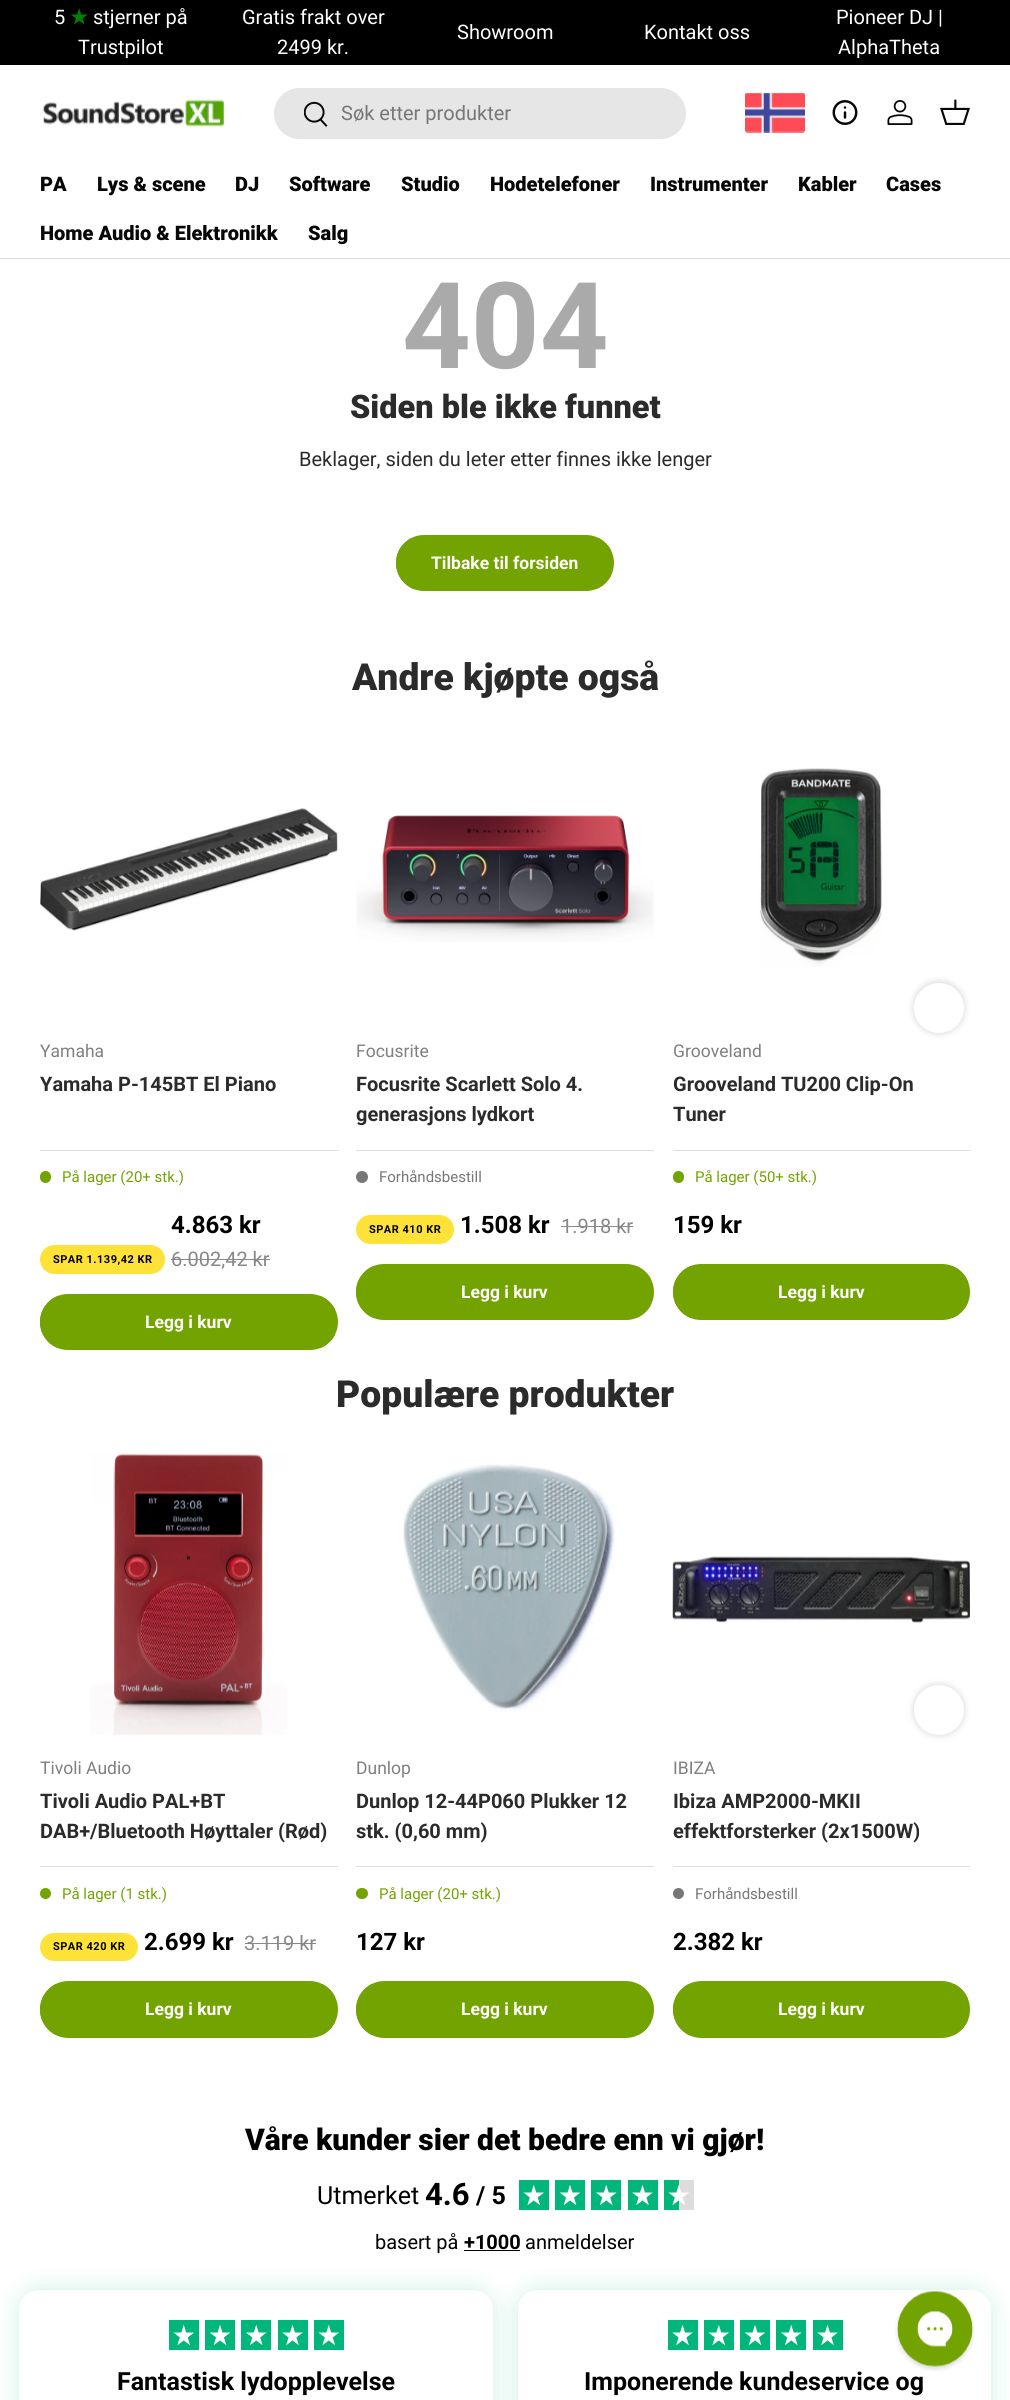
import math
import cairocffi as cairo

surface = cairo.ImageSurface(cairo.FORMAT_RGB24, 1010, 2400)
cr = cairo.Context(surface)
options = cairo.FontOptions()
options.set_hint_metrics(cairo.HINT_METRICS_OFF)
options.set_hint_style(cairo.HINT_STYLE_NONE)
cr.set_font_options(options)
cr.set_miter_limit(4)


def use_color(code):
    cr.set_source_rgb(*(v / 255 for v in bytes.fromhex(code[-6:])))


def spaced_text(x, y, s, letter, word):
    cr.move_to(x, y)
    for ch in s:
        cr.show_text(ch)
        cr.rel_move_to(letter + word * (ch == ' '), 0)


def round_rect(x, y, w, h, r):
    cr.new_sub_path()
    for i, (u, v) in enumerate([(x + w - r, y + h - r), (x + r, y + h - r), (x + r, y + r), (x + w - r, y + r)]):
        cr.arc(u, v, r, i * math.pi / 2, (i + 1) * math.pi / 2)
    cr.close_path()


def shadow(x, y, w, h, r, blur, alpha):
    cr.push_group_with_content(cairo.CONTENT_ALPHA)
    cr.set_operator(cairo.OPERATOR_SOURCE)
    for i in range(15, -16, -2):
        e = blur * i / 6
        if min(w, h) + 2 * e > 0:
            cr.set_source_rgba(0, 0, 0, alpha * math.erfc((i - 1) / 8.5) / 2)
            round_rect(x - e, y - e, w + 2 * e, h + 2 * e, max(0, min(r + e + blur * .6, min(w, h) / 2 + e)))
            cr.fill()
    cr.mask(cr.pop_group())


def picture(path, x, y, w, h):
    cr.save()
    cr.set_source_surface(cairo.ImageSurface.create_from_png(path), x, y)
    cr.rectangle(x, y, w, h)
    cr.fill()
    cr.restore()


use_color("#ffffff")
cr.paint()
use_color("#000000")
cr.rectangle(0, 0, 1010, 65)
cr.fill()
cr.select_font_face("Roboto")
cr.set_font_size(20)
use_color("#ffffff")
cr.move_to(54, 24)
cr.show_text("5")
cr.select_font_face("DejaVu Sans", cairo.FONT_SLANT_NORMAL, cairo.FONT_WEIGHT_BOLD)
use_color("#008000")
cr.move_to(70, 24)
cr.show_text("★")
cr.select_font_face("Roboto")
use_color("#ffffff")
cr.move_to(93, 24)
cr.show_text("stjerner på")
cr.move_to(78, 54)
cr.show_text("Trustpilot")
cr.move_to(242, 24)
cr.show_text("Gratis frakt over")
cr.move_to(277, 54)
cr.show_text("2499 kr.")
cr.move_to(457, 39)
cr.show_text("Showroom")
cr.move_to(644, 39)
cr.show_text("Kontakt oss")
cr.move_to(836, 24)
cr.show_text("Pioneer DJ |")
cr.move_to(838, 54)
cr.show_text("AlphaTheta")
use_color("#dadada")
cr.rectangle(0, 258, 1010, 1)
cr.fill()
picture("img1.png", 43, 99, 182, 28)
use_color("#e6e6e6")
round_rect(274, 88, 412, 51, 25.5)
cr.fill()
picture("img2.png", 304, 101, 24, 26)
use_color("#777777")
cr.move_to(341, 120)
cr.show_text("Søk etter produkter")
picture("img3.png", 745, 93, 60, 40)
picture("img4.png", 832, 100, 26, 25)
picture("img5.png", 887, 100, 26, 25)
picture("img6.png", 940, 99, 30, 26)
cr.select_font_face("Roboto Black")
use_color("#070707")
cr.move_to(40, 191)
cr.show_text("PA")
cr.move_to(97, 191)
cr.show_text("Lys & scene")
cr.move_to(235, 191)
cr.show_text("DJ")
cr.move_to(289, 191)
cr.show_text("Software")
cr.move_to(401, 191)
cr.show_text("Studio")
cr.move_to(490, 191)
cr.show_text("Hodetelefoner")
cr.move_to(650, 191)
cr.show_text("Instrumenter")
cr.move_to(798, 191)
cr.show_text("Kabler")
cr.move_to(886, 191)
cr.show_text("Cases")
cr.move_to(40, 240)
cr.show_text("Home Audio & Elektronikk")
cr.move_to(308, 240)
cr.show_text("Salg")
cr.select_font_face("Roboto", cairo.FONT_SLANT_NORMAL, cairo.FONT_WEIGHT_BOLD)
cr.set_font_size(120)
use_color("#aaaaaa")
cr.move_to(402, 368)
cr.show_text("404")
cr.select_font_face("Roboto Black")
cr.set_font_size(32.5)
use_color("#2a2b2a")
cr.move_to(350, 418)
cr.show_text("Siden ble ikke funnet")
cr.select_font_face("Roboto")
cr.set_font_size(20)
cr.move_to(299, 466)
cr.show_text("Beklager, siden du leter etter finnes ikke lenger")
cr.save()
round_rect(396, 535, 218, 56, 28)
cr.clip()
gradient = cairo.LinearGradient(-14, 487, 599, 639)
gradient.add_color_stop_rgba(0.6, 0.569, 0.745, 0.161, 1)
gradient.add_color_stop_rgba(0.6, 0.447, 0.639, 0, 1)
gradient.add_color_stop_rgba(1, 0.447, 0.639, 0, 1)
cr.set_source(gradient)
cr.rectangle(396, 538, 215, 51)
cr.fill()
cr.restore()
round_rect(397.5, 536.5, 215, 53, 26.5)
use_color("#72a300")
cr.set_line_width(3)
cr.stroke()
cr.select_font_face("Roboto", cairo.FONT_SLANT_NORMAL, cairo.FONT_WEIGHT_BOLD)
cr.set_font_size(17.5)
use_color("#ffffff")
cr.move_to(431, 569)
cr.show_text("Tilbake til forsiden")
cr.select_font_face("Roboto Black")
cr.set_font_size(37.25)
use_color("#2a2b2a")
cr.move_to(352, 690)
cr.show_text("Andre kjøpte også")
use_color("#dddddd")
shadow(913, 981, 52, 53, 26, 3, 1)
use_color("#ffffff")
cr.arc(939, 1008, 25, 0, 2 * math.pi)
cr.fill()
picture("img7.png", 40, 808, 298, 123)
cr.select_font_face("Roboto")
cr.set_font_size(17.5)
use_color("#7f807f")
cr.move_to(40, 1057)
cr.show_text("Yamaha")
cr.select_font_face("Roboto", cairo.FONT_SLANT_NORMAL, cairo.FONT_WEIGHT_BOLD)
cr.set_font_size(20)
use_color("#2a2b2a")
cr.move_to(40, 1091)
cr.show_text("Yamaha P-145BT El Piano")
use_color("#dfdfdf")
cr.rectangle(40, 1150, 298, 1)
cr.fill()
use_color("#72a300")
round_rect(40, 1171, 11, 12, 5.5)
cr.fill()
cr.select_font_face("Roboto")
cr.set_font_size(15)
cr.move_to(62, 1182)
cr.show_text("På lager (20+ stk.)")
use_color("#fee238")
round_rect(40, 1245, 125, 29, 14.5)
cr.fill()
cr.select_font_face("Roboto", cairo.FONT_SLANT_NORMAL, cairo.FONT_WEIGHT_BOLD)
cr.set_font_size(11)
use_color("#000000")
spaced_text(53, 1263, "SPAR 1.139,42 KR", 0.5, 0)
cr.set_font_size(24)
cr.move_to(171, 1233)
cr.show_text("4.863 kr")
cr.select_font_face("Roboto")
cr.set_font_size(20)
use_color("#888888")
cr.move_to(171, 1266)
cr.show_text("6.002,42 kr")
cr.rectangle(171, 1259, 99, 1)
cr.fill()
cr.save()
round_rect(40, 1294, 298, 56, 28)
cr.clip()
gradient = cairo.LinearGradient(-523, 1217, 315, 1426)
gradient.add_color_stop_rgba(0.6, 0.569, 0.745, 0.161, 1)
gradient.add_color_stop_rgba(0.6, 0.447, 0.639, 0, 1)
gradient.add_color_stop_rgba(1, 0.447, 0.639, 0, 1)
cr.set_source(gradient)
cr.rectangle(40, 1296, 295, 52)
cr.fill()
cr.restore()
round_rect(41.5, 1295.5, 295, 53, 26.5)
use_color("#72a300")
cr.stroke()
cr.select_font_face("Roboto", cairo.FONT_SLANT_NORMAL, cairo.FONT_WEIGHT_BOLD)
cr.set_font_size(17.5)
use_color("#ffffff")
cr.move_to(145, 1328)
cr.show_text("Legg i kurv")
picture("img8.png", 356, 815, 298, 127)
cr.select_font_face("Roboto")
use_color("#7f807f")
cr.move_to(356, 1057)
cr.show_text("Focusrite")
cr.select_font_face("Roboto", cairo.FONT_SLANT_NORMAL, cairo.FONT_WEIGHT_BOLD)
cr.set_font_size(20)
use_color("#2a2b2a")
cr.move_to(356, 1091)
cr.show_text("Focusrite Scarlett Solo 4.")
cr.move_to(356, 1121)
cr.show_text("generasjons lydkort")
use_color("#dfdfdf")
cr.rectangle(356, 1150, 298, 1)
cr.fill()
use_color("#777777")
cr.arc(362, 1177, 6, 0, 2 * math.pi)
cr.fill()
cr.select_font_face("Roboto")
cr.set_font_size(15)
cr.move_to(379, 1182)
cr.show_text("Forhåndsbestill")
use_color("#fee238")
round_rect(356, 1215, 98, 29, 14.5)
cr.fill()
cr.select_font_face("Roboto", cairo.FONT_SLANT_NORMAL, cairo.FONT_WEIGHT_BOLD)
cr.set_font_size(11)
use_color("#000000")
spaced_text(369, 1233, "SPAR 410 KR", 0.5, 0)
cr.set_font_size(24)
cr.move_to(460, 1233)
cr.show_text("1.508 kr")
cr.select_font_face("Roboto")
cr.set_font_size(20)
use_color("#888888")
cr.move_to(561, 1233)
cr.show_text("1.918 kr")
cr.rectangle(561, 1226, 72, 1)
cr.fill()
cr.save()
round_rect(356, 1264, 298, 56, 28)
cr.clip()
gradient = cairo.LinearGradient(-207, 1187, 632, 1396)
gradient.add_color_stop_rgba(0.6, 0.569, 0.745, 0.161, 1)
gradient.add_color_stop_rgba(0.6, 0.447, 0.639, 0, 1)
gradient.add_color_stop_rgba(1, 0.447, 0.639, 0, 1)
cr.set_source(gradient)
cr.rectangle(356, 1266, 295, 52)
cr.fill()
cr.restore()
round_rect(357.5, 1265.5, 295, 53, 26.5)
use_color("#72a300")
cr.stroke()
cr.select_font_face("Roboto", cairo.FONT_SLANT_NORMAL, cairo.FONT_WEIGHT_BOLD)
cr.set_font_size(17.5)
use_color("#ffffff")
cr.move_to(461, 1298)
cr.show_text("Legg i kurv")
picture("img9.png", 759, 768, 124, 199)
cr.select_font_face("Roboto")
use_color("#7f807f")
cr.move_to(673, 1057)
cr.show_text("Grooveland")
cr.select_font_face("Roboto", cairo.FONT_SLANT_NORMAL, cairo.FONT_WEIGHT_BOLD)
cr.set_font_size(20)
use_color("#2a2b2a")
cr.move_to(673, 1091)
cr.show_text("Grooveland TU200 Clip-On")
cr.move_to(673, 1121)
cr.show_text("Tuner")
use_color("#dfdfdf")
cr.rectangle(673, 1150, 297, 1)
cr.fill()
use_color("#72a300")
round_rect(673, 1171, 11, 12, 5.5)
cr.fill()
cr.select_font_face("Roboto")
cr.set_font_size(15)
cr.move_to(695, 1182)
cr.show_text("På lager (50+ stk.)")
cr.select_font_face("Roboto", cairo.FONT_SLANT_NORMAL, cairo.FONT_WEIGHT_BOLD)
cr.set_font_size(24)
use_color("#000000")
cr.move_to(673, 1233)
cr.show_text("159 kr")
cr.save()
round_rect(673, 1264, 297, 56, 28)
cr.clip()
gradient = cairo.LinearGradient(110, 1187, 948, 1396)
gradient.add_color_stop_rgba(0.6, 0.569, 0.745, 0.161, 1)
gradient.add_color_stop_rgba(0.6, 0.447, 0.639, 0, 1)
gradient.add_color_stop_rgba(1, 0.447, 0.639, 0, 1)
cr.set_source(gradient)
cr.rectangle(673, 1266, 295, 52)
cr.fill()
cr.restore()
round_rect(674.5, 1265.5, 294, 53, 26.5)
use_color("#72a300")
cr.stroke()
cr.set_font_size(17.5)
use_color("#ffffff")
cr.move_to(778, 1298)
cr.show_text("Legg i kurv")
cr.select_font_face("Roboto Black")
cr.set_font_size(37.25)
use_color("#2a2b2a")
cr.move_to(336, 1407)
cr.show_text("Populære produkter")
use_color("#dddddd")
shadow(913, 1684, 52, 52, 26, 3, 1)
use_color("#ffffff")
cr.arc(939, 1710, 25, 0, 2 * math.pi)
cr.fill()
picture("img10.png", 90, 1453, 197, 283)
cr.select_font_face("Roboto")
cr.set_font_size(17.5)
use_color("#7f807f")
cr.move_to(40, 1774)
cr.show_text("Tivoli Audio")
cr.select_font_face("Roboto", cairo.FONT_SLANT_NORMAL, cairo.FONT_WEIGHT_BOLD)
cr.set_font_size(20)
use_color("#2a2b2a")
cr.move_to(40, 1808)
cr.show_text("Tivoli Audio PAL+BT")
cr.move_to(40, 1838)
cr.show_text("DAB+/Bluetooth Høyttaler (Rød)")
use_color("#dfdfdf")
cr.rectangle(40, 1866, 298, 1)
cr.fill()
use_color("#72a300")
cr.arc(45.5, 1893.5, 5.5, 0, 2 * math.pi)
cr.fill()
cr.select_font_face("Roboto")
cr.set_font_size(15)
cr.move_to(62, 1899)
cr.show_text("På lager (1 stk.)")
use_color("#fee238")
round_rect(40, 1933, 98, 28, 14)
cr.fill()
cr.select_font_face("Roboto", cairo.FONT_SLANT_NORMAL, cairo.FONT_WEIGHT_BOLD)
cr.set_font_size(11)
use_color("#000000")
spaced_text(53, 1950, "SPAR 420 KR", 0.5, 0)
cr.set_font_size(24)
cr.move_to(144, 1950)
cr.show_text("2.699 kr")
cr.select_font_face("Roboto")
cr.set_font_size(20)
use_color("#888888")
cr.move_to(244, 1950)
cr.show_text("3.119 kr")
cr.rectangle(245, 1943, 71, 1)
cr.fill()
cr.save()
round_rect(40, 1981, 298, 57, 28.5)
cr.clip()
gradient = cairo.LinearGradient(-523, 1905, 315, 2114)
gradient.add_color_stop_rgba(0.6, 0.569, 0.745, 0.161, 1)
gradient.add_color_stop_rgba(0.6, 0.447, 0.639, 0, 1)
gradient.add_color_stop_rgba(1, 0.447, 0.639, 0, 1)
cr.set_source(gradient)
cr.rectangle(40, 1984, 295, 51)
cr.fill()
cr.restore()
round_rect(41.5, 1982.5, 295, 54, 27)
use_color("#72a300")
cr.stroke()
cr.select_font_face("Roboto", cairo.FONT_SLANT_NORMAL, cairo.FONT_WEIGHT_BOLD)
cr.set_font_size(17.5)
use_color("#ffffff")
cr.move_to(145, 2015)
cr.show_text("Legg i kurv")
picture("img11.png", 403, 1464, 212, 248)
cr.select_font_face("Roboto")
use_color("#7f807f")
cr.move_to(356, 1774)
cr.show_text("Dunlop")
cr.select_font_face("Roboto", cairo.FONT_SLANT_NORMAL, cairo.FONT_WEIGHT_BOLD)
cr.set_font_size(20)
use_color("#2a2b2a")
cr.move_to(356, 1808)
cr.show_text("Dunlop 12-44P060 Plukker 12")
cr.move_to(356, 1838)
cr.show_text("stk. (0,60 mm)")
use_color("#dfdfdf")
cr.rectangle(356, 1866, 298, 1)
cr.fill()
use_color("#72a300")
round_rect(356, 1888, 12, 11, 5.5)
cr.fill()
cr.select_font_face("Roboto")
cr.set_font_size(15)
cr.move_to(379, 1899)
cr.show_text("På lager (20+ stk.)")
cr.select_font_face("Roboto", cairo.FONT_SLANT_NORMAL, cairo.FONT_WEIGHT_BOLD)
cr.set_font_size(24)
use_color("#000000")
cr.move_to(356, 1950)
cr.show_text("127 kr")
cr.save()
round_rect(356, 1981, 298, 57, 28.5)
cr.clip()
gradient = cairo.LinearGradient(-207, 1905, 632, 2114)
gradient.add_color_stop_rgba(0.6, 0.569, 0.745, 0.161, 1)
gradient.add_color_stop_rgba(0.6, 0.447, 0.639, 0, 1)
gradient.add_color_stop_rgba(1, 0.447, 0.639, 0, 1)
cr.set_source(gradient)
cr.rectangle(356, 1984, 295, 51)
cr.fill()
cr.restore()
round_rect(357.5, 1982.5, 295, 54, 27)
use_color("#72a300")
cr.stroke()
cr.set_font_size(17.5)
use_color("#ffffff")
cr.move_to(461, 2015)
cr.show_text("Legg i kurv")
picture("img12.png", 672, 1556, 298, 67)
cr.select_font_face("Roboto")
use_color("#7f807f")
cr.move_to(673, 1774)
cr.show_text("IBIZA")
cr.select_font_face("Roboto", cairo.FONT_SLANT_NORMAL, cairo.FONT_WEIGHT_BOLD)
cr.set_font_size(20)
use_color("#2a2b2a")
cr.move_to(673, 1808)
cr.show_text("Ibiza AMP2000-MKII")
cr.move_to(673, 1838)
cr.show_text("effektforsterker (2x1500W)")
use_color("#dfdfdf")
cr.rectangle(673, 1866, 297, 1)
cr.fill()
use_color("#777777")
cr.arc(678.5, 1893.5, 5.5, 0, 2 * math.pi)
cr.fill()
cr.select_font_face("Roboto")
cr.set_font_size(15)
cr.move_to(695, 1899)
cr.show_text("Forhåndsbestill")
cr.select_font_face("Roboto", cairo.FONT_SLANT_NORMAL, cairo.FONT_WEIGHT_BOLD)
cr.set_font_size(24)
use_color("#000000")
cr.move_to(673, 1950)
cr.show_text("2.382 kr")
cr.save()
round_rect(673, 1981, 297, 57, 28.5)
cr.clip()
gradient = cairo.LinearGradient(110, 1905, 948, 2114)
gradient.add_color_stop_rgba(0.6, 0.569, 0.745, 0.161, 1)
gradient.add_color_stop_rgba(0.6, 0.447, 0.639, 0, 1)
gradient.add_color_stop_rgba(1, 0.447, 0.639, 0, 1)
cr.set_source(gradient)
cr.rectangle(673, 1984, 295, 51)
cr.fill()
cr.restore()
round_rect(674.5, 1982.5, 294, 54, 27)
use_color("#72a300")
cr.stroke()
cr.set_font_size(17.5)
use_color("#ffffff")
cr.move_to(778, 2015)
cr.show_text("Legg i kurv")
cr.select_font_face("Roboto Black")
cr.set_font_size(30)
use_color("#000000")
cr.move_to(245, 2150)
cr.show_text("Våre kunder sier det bedre enn vi gjør!")
cr.select_font_face("Roboto")
cr.set_font_size(25)
cr.move_to(317, 2204)
cr.show_text("Utmerket")
cr.select_font_face("Roboto", cairo.FONT_SLANT_NORMAL, cairo.FONT_WEIGHT_BOLD)
cr.set_font_size(31)
cr.move_to(425, 2205)
cr.show_text("4.6")
cr.set_font_size(25)
cr.move_to(476, 2204)
cr.show_text("/ 5")
use_color("#00b67a")
cr.rectangle(519, 2180, 30, 30)
cr.fill()
picture("img13.png", 523, 2185, 21, 20)
cr.rectangle(555, 2180, 30, 30)
cr.fill()
picture("img14.png", 560, 2185, 20, 20)
cr.rectangle(591, 2180, 30, 30)
cr.fill()
picture("img15.png", 596, 2185, 21, 20)
cr.rectangle(628, 2180, 30, 30)
cr.fill()
picture("img16.png", 632, 2185, 21, 20)
cr.rectangle(664, 2180, 4, 30)
cr.fill()
picture("img17.png", 668, 2180, 26, 30)
cr.select_font_face("Roboto")
cr.set_font_size(20)
use_color("#000000")
cr.move_to(375, 2249)
cr.show_text("basert på")
cr.select_font_face("Roboto", cairo.FONT_SLANT_NORMAL, cairo.FONT_WEIGHT_BOLD)
cr.move_to(464, 2249)
cr.show_text("+1000")
cr.rectangle(464, 2250, 56, 1)
cr.fill()
cr.select_font_face("Roboto")
cr.move_to(525, 2249)
cr.show_text("anmeldelser")
use_color("#00b67a")
shadow(19, 2290, 474, 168, 20, 12.5, 0.2)
use_color("#ffffff")
round_rect(19, 2290, 474, 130, 20)
cr.fill()
use_color("#00b67a")
cr.rectangle(169, 2320, 30, 30)
cr.fill()
picture("img13.png", 173, 2325, 21, 20)
cr.rectangle(205, 2320, 30, 30)
cr.fill()
picture("img14.png", 210, 2325, 20, 20)
cr.rectangle(241, 2320, 30, 30)
cr.fill()
picture("img15.png", 246, 2325, 21, 20)
cr.rectangle(278, 2320, 30, 30)
cr.fill()
picture("img16.png", 282, 2325, 21, 20)
cr.rectangle(314, 2320, 30, 30)
cr.fill()
picture("img13.png", 318, 2325, 21, 20)
cr.select_font_face("Roboto", cairo.FONT_SLANT_NORMAL, cairo.FONT_WEIGHT_BOLD)
cr.set_font_size(25)
use_color("#000000")
cr.move_to(117, 2390)
cr.show_text("Fantastisk lydopplevelse")
use_color("#00b67a")
shadow(518, 2290, 473, 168, 20, 12.5, 0.2)
use_color("#ffffff")
round_rect(518, 2290, 473, 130, 20)
cr.fill()
use_color("#00b67a")
cr.rectangle(668, 2320, 30, 30)
cr.fill()
picture("img16.png", 672, 2325, 21, 20)
cr.rectangle(704, 2320, 30, 30)
cr.fill()
picture("img13.png", 708, 2325, 21, 20)
cr.rectangle(740, 2320, 30, 30)
cr.fill()
picture("img14.png", 745, 2325, 20, 20)
cr.rectangle(776, 2320, 30, 30)
cr.fill()
picture("img15.png", 781, 2325, 21, 20)
cr.rectangle(813, 2320, 30, 30)
cr.fill()
picture("img16.png", 817, 2325, 21, 20)
use_color("#000000")
cr.move_to(584, 2390)
cr.show_text("Imponerende kundeservice og")
picture("img18.png", 895, 2290, 80, 81)
surface.write_to_png("result.png")
